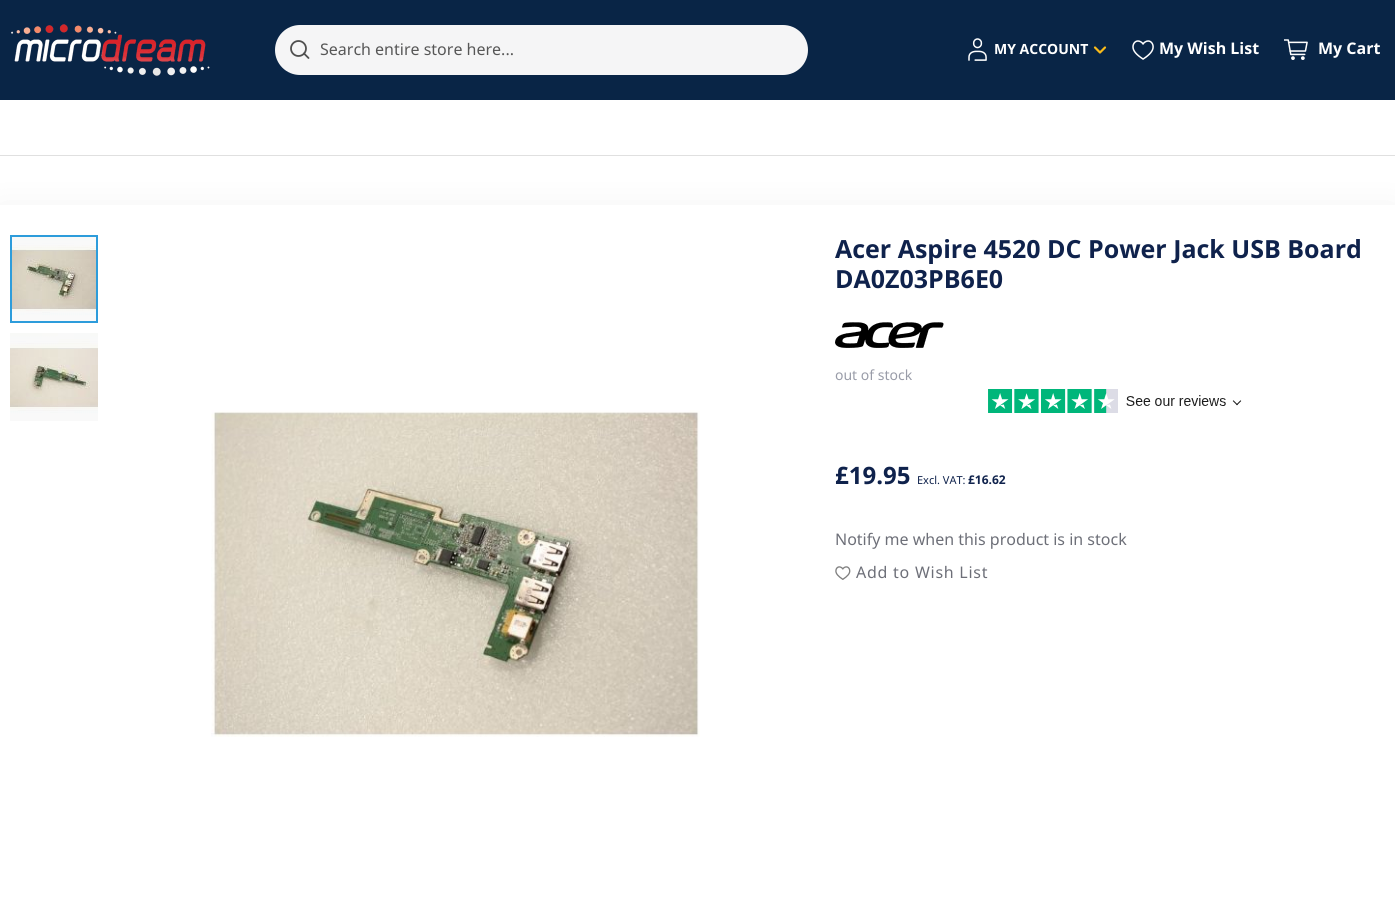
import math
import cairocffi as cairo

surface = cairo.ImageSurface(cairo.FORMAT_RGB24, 1395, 915)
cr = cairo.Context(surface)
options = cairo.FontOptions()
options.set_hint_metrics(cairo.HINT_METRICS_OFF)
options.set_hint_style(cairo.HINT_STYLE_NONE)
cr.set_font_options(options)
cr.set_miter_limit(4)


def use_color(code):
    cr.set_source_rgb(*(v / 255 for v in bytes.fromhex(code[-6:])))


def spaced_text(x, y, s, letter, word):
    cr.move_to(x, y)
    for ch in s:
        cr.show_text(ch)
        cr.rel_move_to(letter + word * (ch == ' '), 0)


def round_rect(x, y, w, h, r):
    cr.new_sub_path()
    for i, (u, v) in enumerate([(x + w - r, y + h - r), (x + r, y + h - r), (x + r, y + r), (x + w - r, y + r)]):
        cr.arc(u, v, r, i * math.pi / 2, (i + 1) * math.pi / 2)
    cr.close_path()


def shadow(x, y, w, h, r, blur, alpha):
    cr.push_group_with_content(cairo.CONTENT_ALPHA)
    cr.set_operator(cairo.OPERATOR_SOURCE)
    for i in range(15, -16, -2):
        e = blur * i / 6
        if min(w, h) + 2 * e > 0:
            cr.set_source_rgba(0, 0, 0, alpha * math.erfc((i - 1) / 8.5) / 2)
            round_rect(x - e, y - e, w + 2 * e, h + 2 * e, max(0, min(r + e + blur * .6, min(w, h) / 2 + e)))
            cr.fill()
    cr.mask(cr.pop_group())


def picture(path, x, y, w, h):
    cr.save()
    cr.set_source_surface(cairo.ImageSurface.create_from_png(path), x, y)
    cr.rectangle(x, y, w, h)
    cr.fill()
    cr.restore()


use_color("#ffffff")
cr.paint()
use_color("#092546")
cr.rectangle(0, 0, 1395, 100)
cr.fill()
use_color("#e0e0e0")
cr.rectangle(0, 155, 1395, 1)
cr.fill()
picture("img1.png", 11, 24, 199, 53)
use_color("#f5f5f6")
round_rect(275, 25, 533, 50, 25)
cr.fill()
cr.arc(298.5, 48.5, 7.5, 0, 2 * math.pi)
use_color("#4f4f4f")
cr.set_line_width(1.8)
cr.stroke()
cr.new_path()
cr.move_to(304, 53.5)
cr.line_to(308.5, 58)
cr.set_line_cap(cairo.LINE_CAP_ROUND)
cr.set_line_join(cairo.LINE_JOIN_ROUND)
cr.stroke()
cr.select_font_face("Noto Sans")
cr.set_font_size(16)
use_color("#575757")
cr.move_to(320, 55)
cr.show_text("Search entire store here...")
picture("img2.png", 968, 38, 19, 23)
cr.select_font_face("Noto Sans", cairo.FONT_SLANT_NORMAL, cairo.FONT_WEIGHT_BOLD)
cr.set_font_size(14)
use_color("#ffffff")
cr.move_to(994, 54)
cr.show_text("MY ACCOUNT")
cr.new_path()
cr.move_to(1095, 47.5)
cr.line_to(1100, 52.5)
cr.line_to(1105, 47.5)
use_color("#fabb1a")
cr.set_line_width(2.2)
cr.stroke()
picture("img3.png", 1132, 40, 22, 20)
cr.set_font_size(16)
use_color("#ffffff")
cr.move_to(1159, 54)
cr.show_text("My Wish List")
picture("img4.png", 1284, 39, 24, 21)
cr.move_to(1318, 54)
cr.show_text("My Cart")
use_color("#000000")
shadow(0, 209, 1395, 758, 0, 18, 0.06)
use_color("#ffffff")
cr.rectangle(0, 205, 1395, 710)
cr.fill()
picture("img5.png", 12, 237, 84, 84)
cr.rectangle(11, 236, 86, 86)
use_color("#2d9cdb")
cr.set_line_width(2)
cr.set_line_cap(cairo.LINE_CAP_BUTT)
cr.set_line_join(cairo.LINE_JOIN_MITER)
cr.stroke()
picture("img6.png", 10, 333, 88, 88)
picture("img7.png", 211, 410, 489, 327)
cr.set_font_size(25)
use_color("#0f224c")
cr.move_to(835, 258)
cr.show_text("Acer Aspire 4520 DC Power Jack USB Board")
cr.move_to(835, 288)
cr.show_text("DA0Z03PB6E0")
picture("img8.png", 835, 322, 109, 26)
cr.select_font_face("Noto Sans")
cr.set_font_size(14)
use_color("#999ca8")
cr.move_to(835, 380)
cr.show_text("out of stock")
picture("img9.png", 988, 389, 254, 24)
cr.select_font_face("Noto Sans", cairo.FONT_SLANT_NORMAL, cairo.FONT_WEIGHT_BOLD)
cr.set_font_size(24)
use_color("#0f224c")
cr.move_to(835, 484)
cr.show_text("£19.95")
cr.select_font_face("Noto Sans")
cr.set_font_size(11)
cr.move_to(917, 484)
cr.show_text("Excl. VAT:")
cr.select_font_face("Noto Sans", cairo.FONT_SLANT_NORMAL, cairo.FONT_WEIGHT_BOLD)
cr.set_font_size(12)
cr.move_to(968, 484)
cr.show_text("£16.62")
cr.select_font_face("Noto Sans")
cr.set_font_size(16)
use_color("#6d6f78")
cr.move_to(835, 545)
cr.show_text("Notify me when this product is in stock")
picture("img10.png", 835, 566, 16, 14)
spaced_text(856, 578, "Add to Wish List", 0.75, 0)
surface.write_to_png("result.png")
